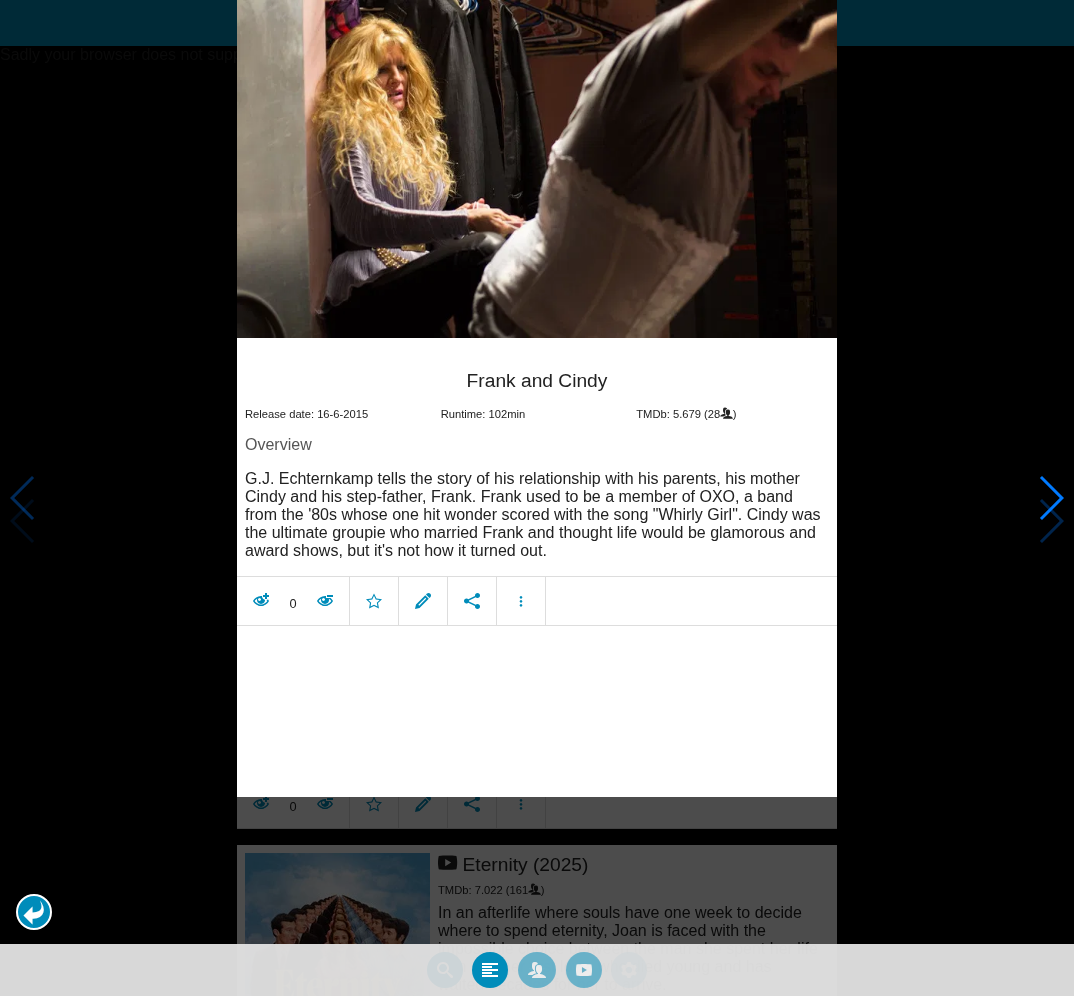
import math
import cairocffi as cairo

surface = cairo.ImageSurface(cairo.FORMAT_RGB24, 1074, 996)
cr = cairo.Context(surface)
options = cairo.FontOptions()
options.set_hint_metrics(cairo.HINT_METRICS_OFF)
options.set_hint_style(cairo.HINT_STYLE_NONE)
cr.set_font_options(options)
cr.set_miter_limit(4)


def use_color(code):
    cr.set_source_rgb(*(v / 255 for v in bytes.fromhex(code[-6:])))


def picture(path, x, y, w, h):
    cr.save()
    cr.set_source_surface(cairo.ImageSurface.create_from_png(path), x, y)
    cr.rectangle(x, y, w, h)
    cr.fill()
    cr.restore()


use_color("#ffffff")
cr.paint()
picture("img1.png", 0, 0, 1074, 996)
surface.write_to_png("result.png")
